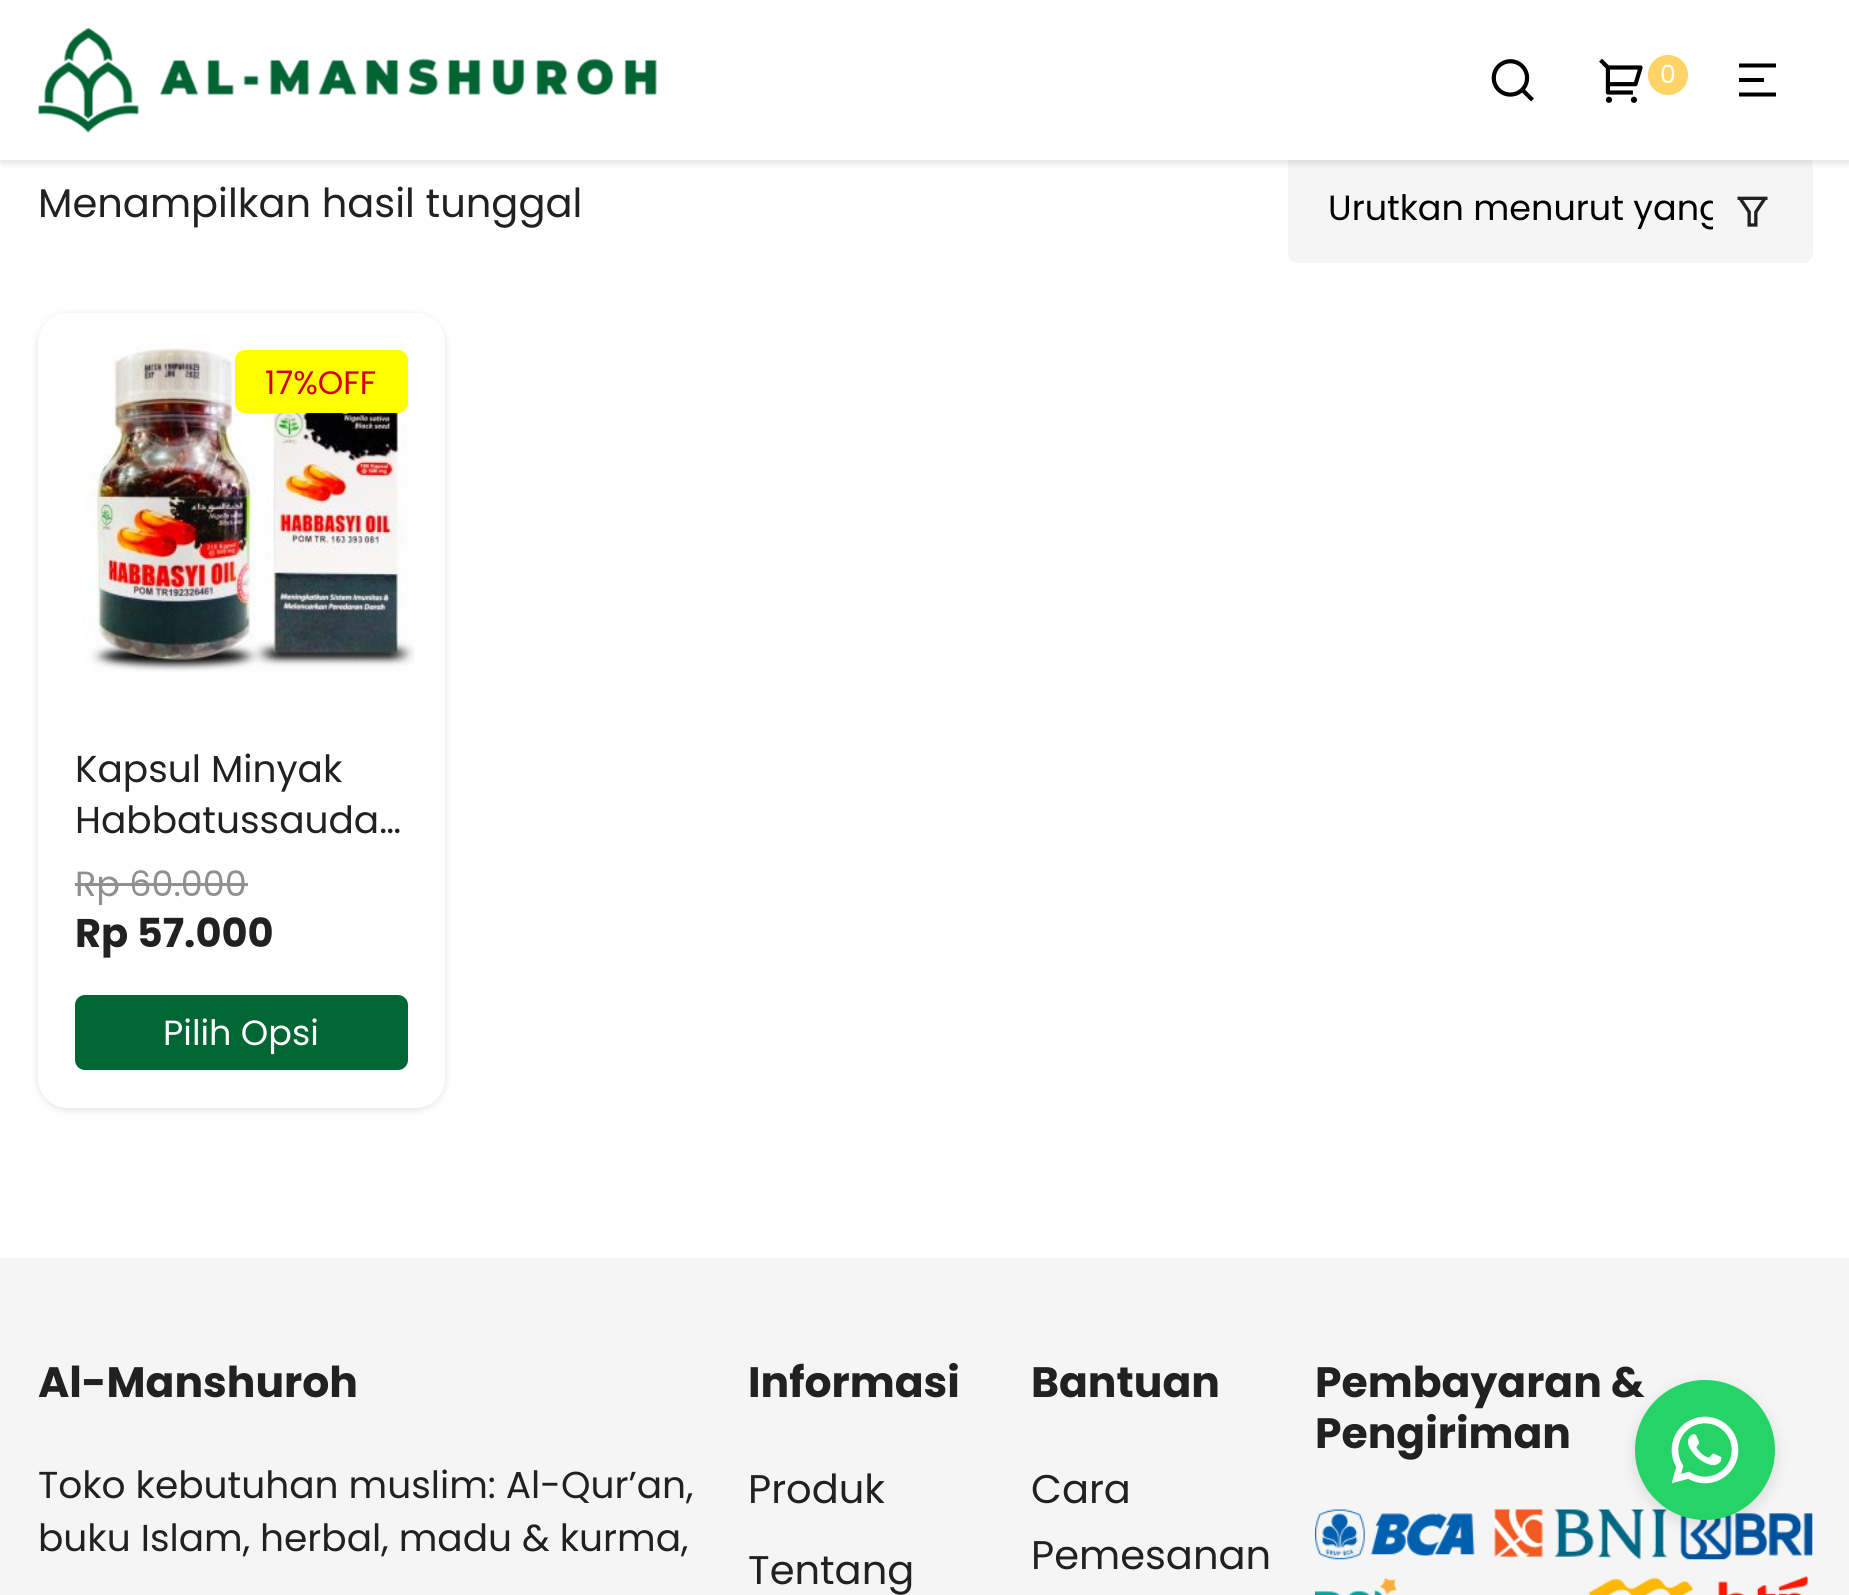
import math
import cairocffi as cairo

surface = cairo.ImageSurface(cairo.FORMAT_RGB24, 1849, 1595)
cr = cairo.Context(surface)
options = cairo.FontOptions()
options.set_hint_metrics(cairo.HINT_METRICS_OFF)
options.set_hint_style(cairo.HINT_STYLE_NONE)
cr.set_font_options(options)
cr.set_miter_limit(4)


def use_color(code):
    cr.set_source_rgb(*(v / 255 for v in bytes.fromhex(code[-6:])))


def round_rect(x, y, w, h, r):
    cr.new_sub_path()
    for i, (u, v) in enumerate([(x + w - r, y + h - r), (x + r, y + h - r), (x + r, y + r), (x + w - r, y + r)]):
        cr.arc(u, v, r, i * math.pi / 2, (i + 1) * math.pi / 2)
    cr.close_path()


def shadow(x, y, w, h, r, blur, alpha):
    cr.push_group_with_content(cairo.CONTENT_ALPHA)
    cr.set_operator(cairo.OPERATOR_SOURCE)
    for i in range(15, -16, -2):
        e = blur * i / 6
        if min(w, h) + 2 * e > 0:
            cr.set_source_rgba(0, 0, 0, alpha * math.erfc((i - 1) / 8.5) / 2)
            round_rect(x - e, y - e, w + 2 * e, h + 2 * e, max(0, min(r + e + blur * .6, min(w, h) / 2 + e)))
            cr.fill()
    cr.mask(cr.pop_group())


def picture(path, x, y, w, h):
    cr.save()
    cr.set_source_surface(cairo.ImageSurface.create_from_png(path), x, y)
    cr.rectangle(x, y, w, h)
    cr.fill()
    cr.restore()


use_color("#ffffff")
cr.paint()
use_color("#f5f5f5")
round_rect(1288, 155, 525, 108, 10)
cr.fill()
use_color("#000000")
shadow(0, 3, 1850, 160, 0, 4, 0.12)
use_color("#ffffff")
cr.rectangle(0, 0, 1849, 160)
cr.fill()
picture("img1.png", 38, 28, 619, 105)
picture("img2.png", 1491, 59, 43, 43)
picture("img3.png", 1599, 58, 44, 45)
use_color("#ffd365")
cr.arc(1668, 75, 20, 0, 2 * math.pi)
cr.fill()
cr.select_font_face("Poppins")
cr.set_font_size(25)
use_color("#ffffff")
cr.move_to(1660, 83)
cr.show_text("0")
use_color("#000000")
cr.new_path()
cr.move_to(1739, 63.5)
cr.line_to(1776, 63.5)
cr.line_to(1776, 67.5)
cr.line_to(1739, 67.5)
cr.close_path()
cr.move_to(1739, 78)
cr.line_to(1764, 78)
cr.line_to(1764, 82)
cr.line_to(1739, 82)
cr.close_path()
cr.move_to(1739, 92.5)
cr.line_to(1776, 92.5)
cr.line_to(1776, 96.5)
cr.line_to(1739, 96.5)
cr.close_path()
cr.fill()
cr.set_font_size(40)
use_color("#212121")
cr.move_to(38, 217)
cr.show_text("Menampilkan hasil tunggal")
picture("img4.png", 1737, 196, 31, 31)
cr.save()
cr.rectangle(1328, 185, 385, 48)
cr.clip()
cr.set_font_size(35)
use_color("#000000")
cr.move_to(1328, 220)
cr.show_text("Urutkan menurut yang")
cr.restore()
cr.save()
cr.set_fill_rule(cairo.FILL_RULE_EVEN_ODD)
cr.new_path()
cr.move_to(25, 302)
cr.line_to(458, 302)
cr.line_to(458, 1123)
cr.line_to(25, 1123)
cr.close_path()
cr.move_to(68, 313)
cr.line_to(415, 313)
cr.curve_to(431.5, 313, 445, 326.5, 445, 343)
cr.line_to(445, 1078)
cr.curve_to(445, 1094.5, 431.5, 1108, 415, 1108)
cr.line_to(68, 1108)
cr.curve_to(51.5, 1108, 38, 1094.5, 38, 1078)
cr.line_to(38, 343)
cr.curve_to(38, 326.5, 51.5, 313, 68, 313)
cr.close_path()
cr.clip()
use_color("#000000")
shadow(38, 315, 407, 795, 30, 4, 0.12)
cr.restore()
picture("img5.png", 82, 334, 333, 338)
use_color("#ffff00")
round_rect(235, 350, 173, 63, 10)
cr.fill()
cr.set_font_size(32.5)
use_color("#d1001c")
cr.move_to(265, 394)
cr.show_text("17%OFF")
cr.set_font_size(37.5)
use_color("#212121")
cr.move_to(75, 782)
cr.show_text("Kapsul Minyak")
cr.move_to(75, 833)
cr.show_text("Habbatussauda…")
cr.set_font_size(35)
use_color("#909090")
cr.move_to(75, 896)
cr.show_text("Rp 60.000")
cr.rectangle(75, 883, 173, 3)
cr.fill()
cr.select_font_face("Poppins", cairo.FONT_SLANT_NORMAL, cairo.FONT_WEIGHT_BOLD)
cr.set_font_size(40)
use_color("#212121")
cr.move_to(75, 947)
cr.show_text("Rp 57.000")
use_color("#006633")
round_rect(75, 995, 333, 75, 10)
cr.fill()
cr.select_font_face("Poppins")
cr.set_font_size(35)
use_color("#ffffff")
cr.move_to(163, 1045)
cr.show_text("Pilih Opsi")
use_color("#f5f5f5")
cr.rectangle(0, 1258, 1849, 337)
cr.fill()
cr.select_font_face("Poppins", cairo.FONT_SLANT_NORMAL, cairo.FONT_WEIGHT_BOLD)
cr.set_font_size(42.5)
use_color("#212121")
cr.move_to(38, 1397)
cr.show_text("Al-Manshuroh")
cr.select_font_face("Poppins")
cr.set_font_size(37.5)
cr.move_to(38, 1498)
cr.show_text("Toko kebutuhan muslim: Al-Qur’an,")
cr.move_to(38, 1551)
cr.show_text("buku Islam, herbal, madu & kurma,")
cr.select_font_face("Poppins", cairo.FONT_SLANT_NORMAL, cairo.FONT_WEIGHT_BOLD)
cr.set_font_size(42.5)
cr.move_to(748, 1397)
cr.show_text("Informasi")
cr.select_font_face("Poppins")
cr.set_font_size(40)
cr.move_to(748, 1503)
cr.show_text("Produk")
cr.move_to(748, 1584)
cr.show_text("Tentang")
cr.select_font_face("Poppins", cairo.FONT_SLANT_NORMAL, cairo.FONT_WEIGHT_BOLD)
cr.set_font_size(42.5)
cr.move_to(1031, 1397)
cr.show_text("Bantuan")
cr.select_font_face("Poppins")
cr.set_font_size(40)
cr.move_to(1031, 1503)
cr.show_text("Cara")
cr.move_to(1031, 1569)
cr.show_text("Pemesanan")
cr.select_font_face("Poppins", cairo.FONT_SLANT_NORMAL, cairo.FONT_WEIGHT_BOLD)
cr.set_font_size(42.5)
cr.move_to(1315, 1397)
cr.show_text("Pembayaran &")
cr.move_to(1315, 1448)
cr.show_text("Pengiriman")
picture("img6.png", 1315, 1509, 498, 86)
use_color("#000000")
shadow(1635, 1385, 140, 140, 70, 7.5, 0.12)
use_color("#25d366")
cr.arc(1705, 1450, 70, 0, 2 * math.pi)
cr.fill()
picture("img7.png", 1671, 1416, 68, 68)
surface.write_to_png("result.png")
